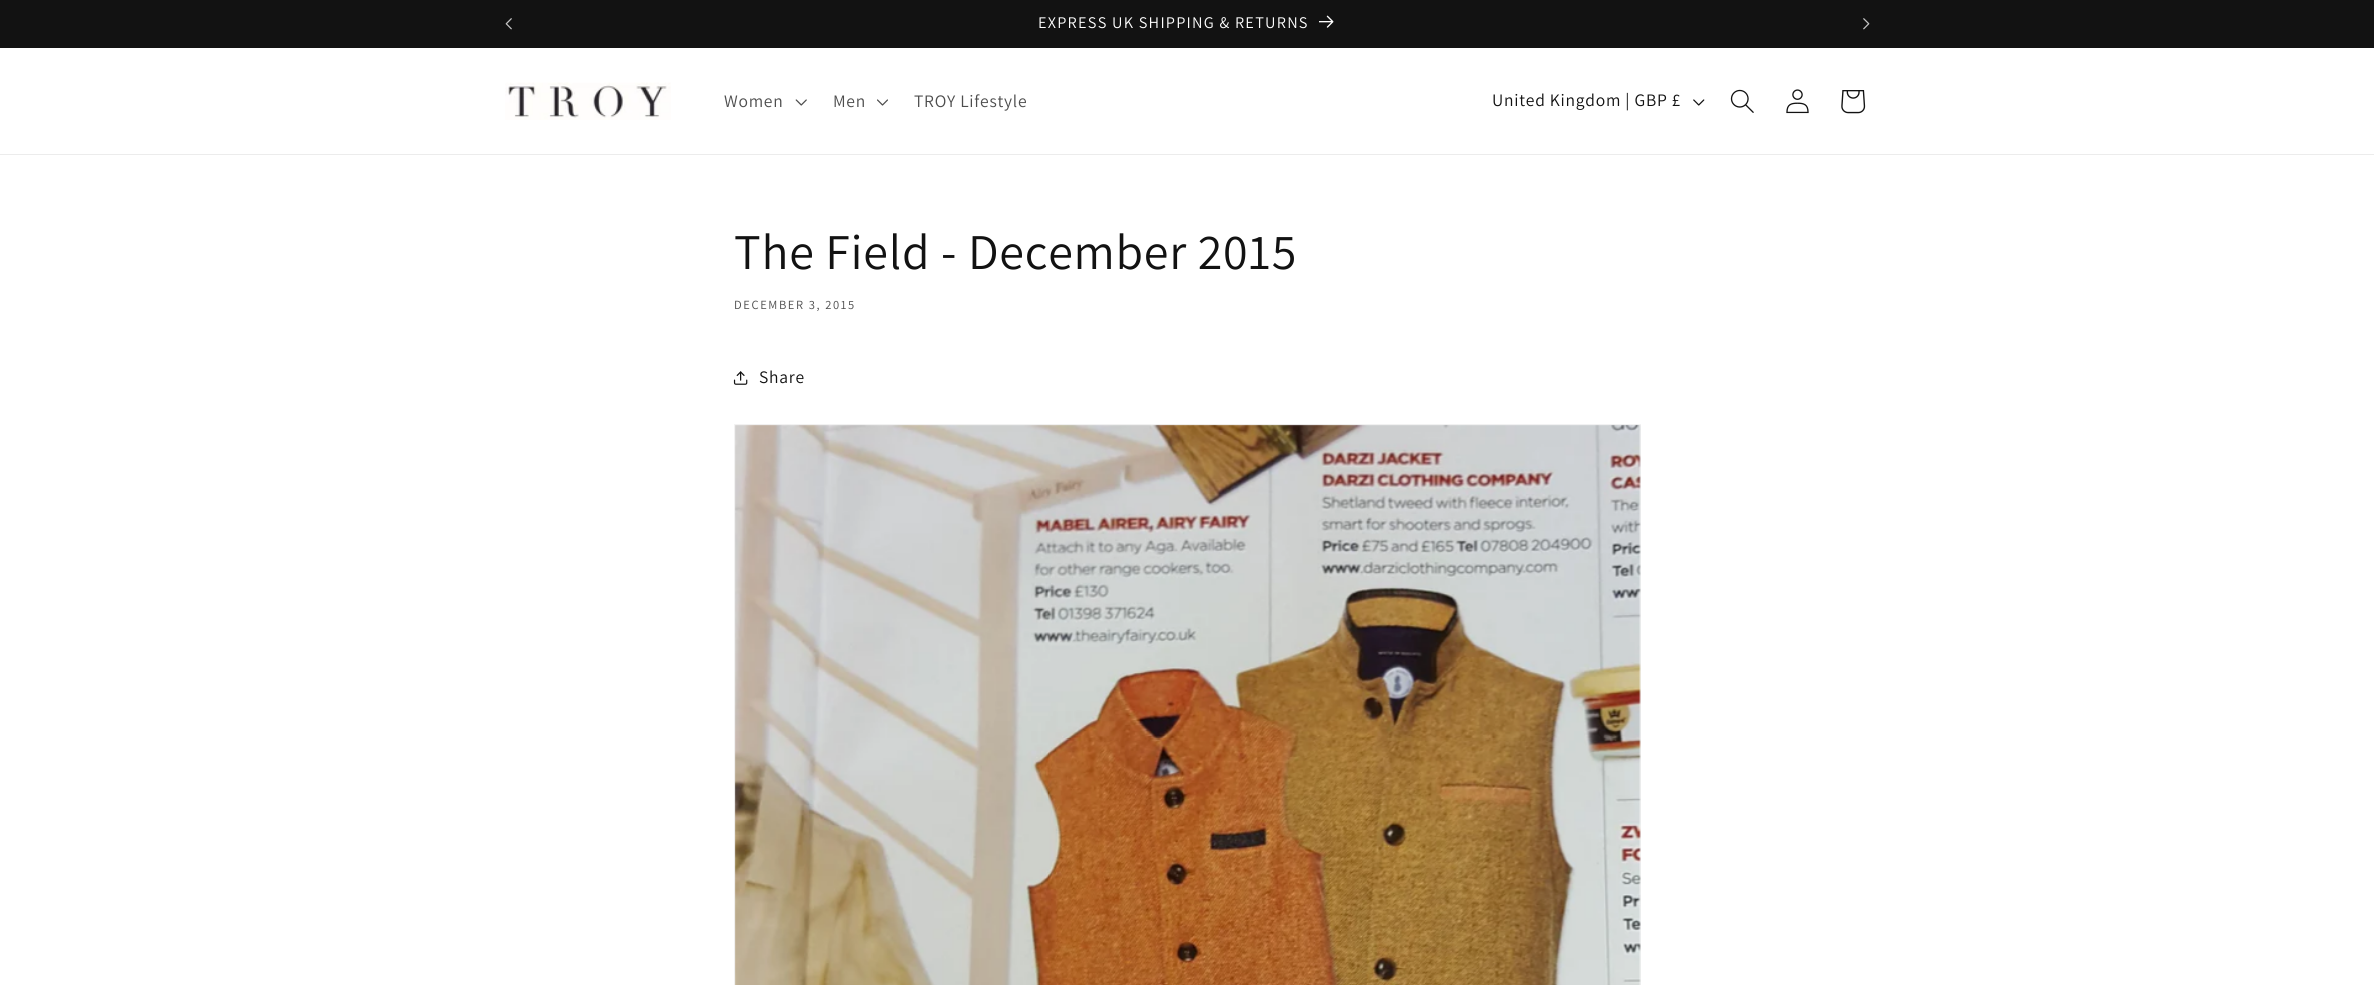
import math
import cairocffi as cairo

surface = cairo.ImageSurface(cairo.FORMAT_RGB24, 2374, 985)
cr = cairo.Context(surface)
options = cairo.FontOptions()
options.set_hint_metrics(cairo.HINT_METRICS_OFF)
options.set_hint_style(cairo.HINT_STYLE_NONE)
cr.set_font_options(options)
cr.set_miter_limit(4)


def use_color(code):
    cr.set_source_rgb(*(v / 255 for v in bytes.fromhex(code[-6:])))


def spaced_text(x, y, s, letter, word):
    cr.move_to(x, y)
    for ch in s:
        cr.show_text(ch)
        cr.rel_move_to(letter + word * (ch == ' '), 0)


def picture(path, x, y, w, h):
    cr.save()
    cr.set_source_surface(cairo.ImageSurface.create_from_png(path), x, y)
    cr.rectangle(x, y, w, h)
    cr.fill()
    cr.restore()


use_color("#ffffff")
cr.paint()
use_color("#121212")
cr.rectangle(0, 0, 2374, 48)
cr.fill()
picture("img1.png", 505, 18, 7, 12)
cr.select_font_face("Assistant")
cr.set_font_size(16.25)
use_color("#ffffff")
spaced_text(1038, 28, "EXPRESS UK SHIPPING & RETURNS", 1.25, 0)
picture("img2.png", 1319, 15, 15, 13)
picture("img3.png", 1863, 18, 7, 12)
use_color("#ececec")
cr.rectangle(0, 154, 2374, 1)
cr.fill()
picture("img4.png", 505, 82, 166, 38)
cr.set_font_size(17.5)
use_color("#4d4d4d")
spaced_text(724, 107, "Women", 0.75, 0)
picture("img5.png", 795, 99, 12, 7)
spaced_text(833, 107, "Men", 0.75, 0)
picture("img6.png", 877, 99, 11, 7)
spaced_text(914, 107, "TROY Lifestyle", 0.75, 0)
use_color("#121212")
spaced_text(1492, 106, "United Kingdom | GBP £", 0.75, 0)
picture("img7.png", 1693, 99, 12, 7)
picture("img8.png", 1730, 89, 24, 24)
picture("img9.png", 1786, 89, 23, 25)
picture("img10.png", 1841, 90, 25, 24)
cr.set_font_size(50)
spaced_text(734, 269, "The Field - December 2015", 0.75, 0)
cr.set_font_size(12.5)
use_color("#4d4d4d")
spaced_text(734, 309, "DECEMBER 3, 2015", 1.6, 0)
picture("img11.png", 733, 371, 15, 14)
cr.set_font_size(17.5)
use_color("#121212")
spaced_text(759, 383, "Share", 0.75, 0)
cr.rectangle(734.5, 424.5, 906, 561)
use_color("#f3f3f3")
cr.set_line_width(1)
cr.stroke()
picture("img12.png", 734, 424, 907, 561)
surface.write_to_png("result.png")
